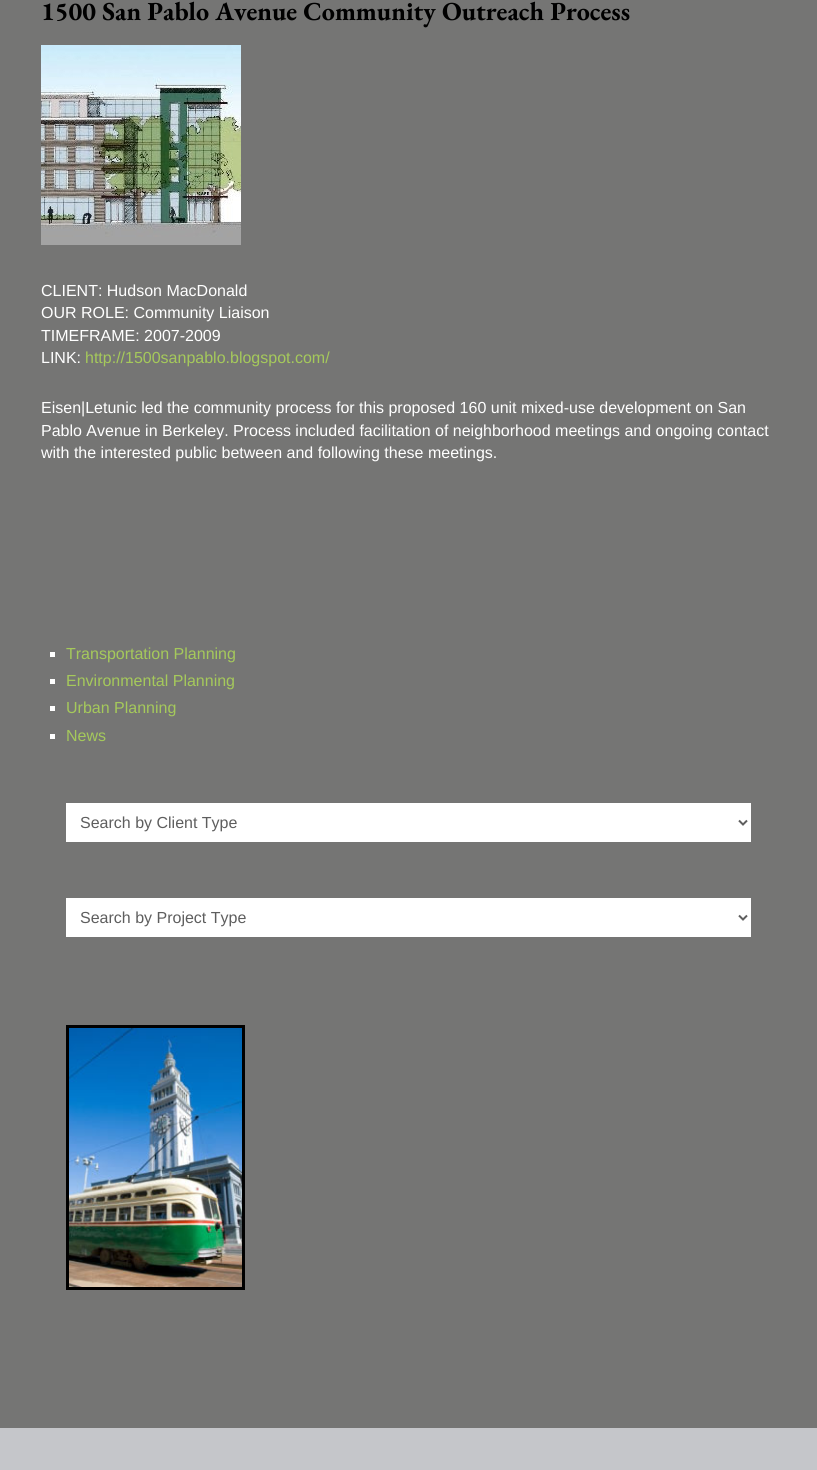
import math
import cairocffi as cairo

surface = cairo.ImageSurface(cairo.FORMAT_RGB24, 817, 1470)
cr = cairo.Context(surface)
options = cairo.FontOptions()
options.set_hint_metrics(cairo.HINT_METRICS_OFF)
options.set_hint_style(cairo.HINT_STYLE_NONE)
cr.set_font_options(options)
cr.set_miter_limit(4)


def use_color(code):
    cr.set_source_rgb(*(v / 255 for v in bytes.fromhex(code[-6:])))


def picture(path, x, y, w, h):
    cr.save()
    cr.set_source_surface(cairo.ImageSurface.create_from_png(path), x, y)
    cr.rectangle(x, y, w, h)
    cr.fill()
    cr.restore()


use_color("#c5c6ca")
cr.paint()
use_color("#757574")
cr.rectangle(0, 0, 817, 1428)
cr.fill()
cr.select_font_face("EB Garamond", cairo.FONT_SLANT_NORMAL, cairo.FONT_WEIGHT_BOLD)
cr.set_font_size(26)
use_color("#000000")
cr.move_to(41, 20)
cr.show_text("1500 San Pablo Avenue Community Outreach Process")
picture("img1.png", 41, 45, 200, 200)
cr.select_font_face("Liberation Sans")
cr.set_font_size(16)
use_color("#ffffff")
cr.move_to(41, 296)
cr.show_text("CLIENT: Hudson MacDonald")
cr.move_to(41, 318)
cr.show_text("OUR ROLE: Community Liaison")
cr.move_to(41, 341)
cr.show_text("TIMEFRAME: 2007-2009")
cr.move_to(41, 363)
cr.show_text("LINK:")
use_color("#a5c95b")
cr.move_to(85, 363)
cr.show_text("http://1500sanpablo.blogspot.com/")
use_color("#ffffff")
cr.move_to(41, 413)
cr.show_text("Eisen|Letunic led the community process for this proposed 160 unit mixed-use development on San")
cr.move_to(41, 436)
cr.show_text("Pablo Avenue in Berkeley. Process included facilitation of neighborhood meetings and ongoing contact")
cr.move_to(41, 458)
cr.show_text("with the interested public between and following these meetings.")
cr.rectangle(50, 652, 5, 5)
cr.fill()
use_color("#a5c95b")
cr.move_to(66, 659)
cr.show_text("Transportation Planning")
use_color("#ffffff")
cr.rectangle(50, 679, 5, 5)
cr.fill()
use_color("#a5c95b")
cr.move_to(66, 686)
cr.show_text("Environmental Planning")
use_color("#ffffff")
cr.rectangle(50, 706, 5, 5)
cr.fill()
use_color("#a5c95b")
cr.move_to(66, 713)
cr.show_text("Urban Planning")
use_color("#ffffff")
cr.rectangle(50, 734, 5, 5)
cr.fill()
use_color("#a5c95b")
cr.move_to(66, 741)
cr.show_text("News")
use_color("#ffffff")
cr.rectangle(66, 803, 685, 39)
cr.fill()
cr.new_path()
cr.move_to(739, 820.5)
cr.line_to(743, 824.5)
cr.line_to(747, 820.5)
use_color("#5e5e5e")
cr.stroke()
cr.move_to(80, 828)
cr.show_text("Search by Client Type")
use_color("#ffffff")
cr.rectangle(66, 898, 685, 39)
cr.fill()
cr.new_path()
cr.move_to(739, 915.5)
cr.line_to(743, 919.5)
cr.line_to(747, 915.5)
use_color("#5e5e5e")
cr.stroke()
cr.move_to(80, 923)
cr.show_text("Search by Project Type")
cr.rectangle(67.5, 1026.5, 176, 262)
use_color("#000000")
cr.set_line_width(3)
cr.stroke()
picture("img2.png", 69, 1028, 173, 259)
surface.write_to_png("result.png")
